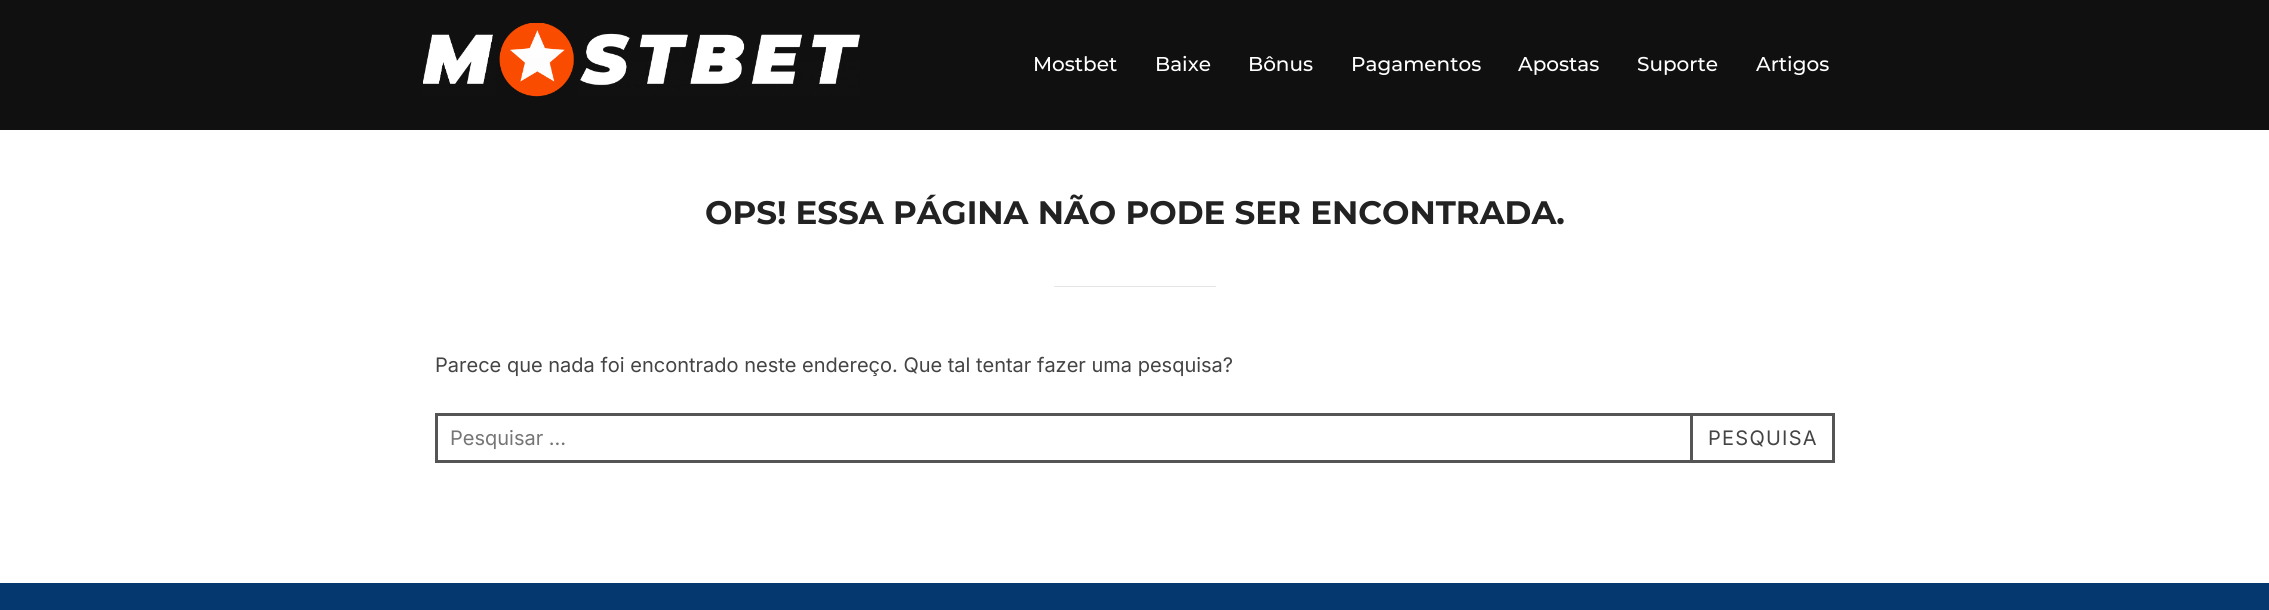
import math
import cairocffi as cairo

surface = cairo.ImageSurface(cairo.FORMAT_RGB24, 2269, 610)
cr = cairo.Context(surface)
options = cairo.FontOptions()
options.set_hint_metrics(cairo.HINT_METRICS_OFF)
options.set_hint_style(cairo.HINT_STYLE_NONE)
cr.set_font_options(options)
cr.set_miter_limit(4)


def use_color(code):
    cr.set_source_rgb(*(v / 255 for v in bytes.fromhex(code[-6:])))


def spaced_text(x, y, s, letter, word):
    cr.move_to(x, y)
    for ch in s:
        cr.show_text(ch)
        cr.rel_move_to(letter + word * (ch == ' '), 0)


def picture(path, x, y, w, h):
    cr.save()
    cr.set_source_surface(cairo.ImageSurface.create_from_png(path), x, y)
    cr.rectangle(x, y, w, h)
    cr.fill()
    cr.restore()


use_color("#ffffff")
cr.paint()
use_color("#101010")
cr.rectangle(0, 0, 2269, 130)
cr.fill()
picture("img1.png", 423, 23, 437, 74)
cr.select_font_face("Montserrat Medium")
cr.set_font_size(20)
use_color("#ffffff")
cr.move_to(1033, 71)
cr.show_text("Mostbet")
cr.move_to(1155, 71)
cr.show_text("Baixe")
cr.move_to(1248, 71)
cr.show_text("Bônus")
cr.move_to(1351, 71)
cr.show_text("Pagamentos")
cr.move_to(1518, 71)
cr.show_text("Apostas")
cr.move_to(1637, 71)
cr.show_text("Suporte")
cr.move_to(1756, 71)
cr.show_text("Artigos")
cr.select_font_face("Montserrat", cairo.FONT_SLANT_NORMAL, cairo.FONT_WEIGHT_BOLD)
cr.set_font_size(32.5)
use_color("#222222")
cr.move_to(705, 224)
cr.show_text("OPS! ESSA PÁGINA NÃO PODE SER ENCONTRADA.")
use_color("#e6e6e6")
cr.rectangle(1054, 286, 162, 1)
cr.fill()
cr.select_font_face("Inter")
cr.set_font_size(20)
use_color("#444444")
cr.move_to(435, 372)
cr.show_text("Parece que nada foi encontrado neste endereço. Que tal tentar fazer uma pesquisa?")
cr.rectangle(436.5, 414.5, 1397, 47)
use_color("#565555")
cr.set_line_width(3)
cr.stroke()
use_color("#757575")
cr.move_to(450, 445)
cr.show_text("Pesquisar …")
cr.rectangle(1691.5, 414.5, 142, 47)
use_color("#565555")
cr.stroke()
use_color("#444444")
spaced_text(1708, 445, "PESQUISA", 1.25, 0)
use_color("#04386e")
cr.rectangle(0, 583, 2269, 27)
cr.fill()
surface.write_to_png("result.png")
